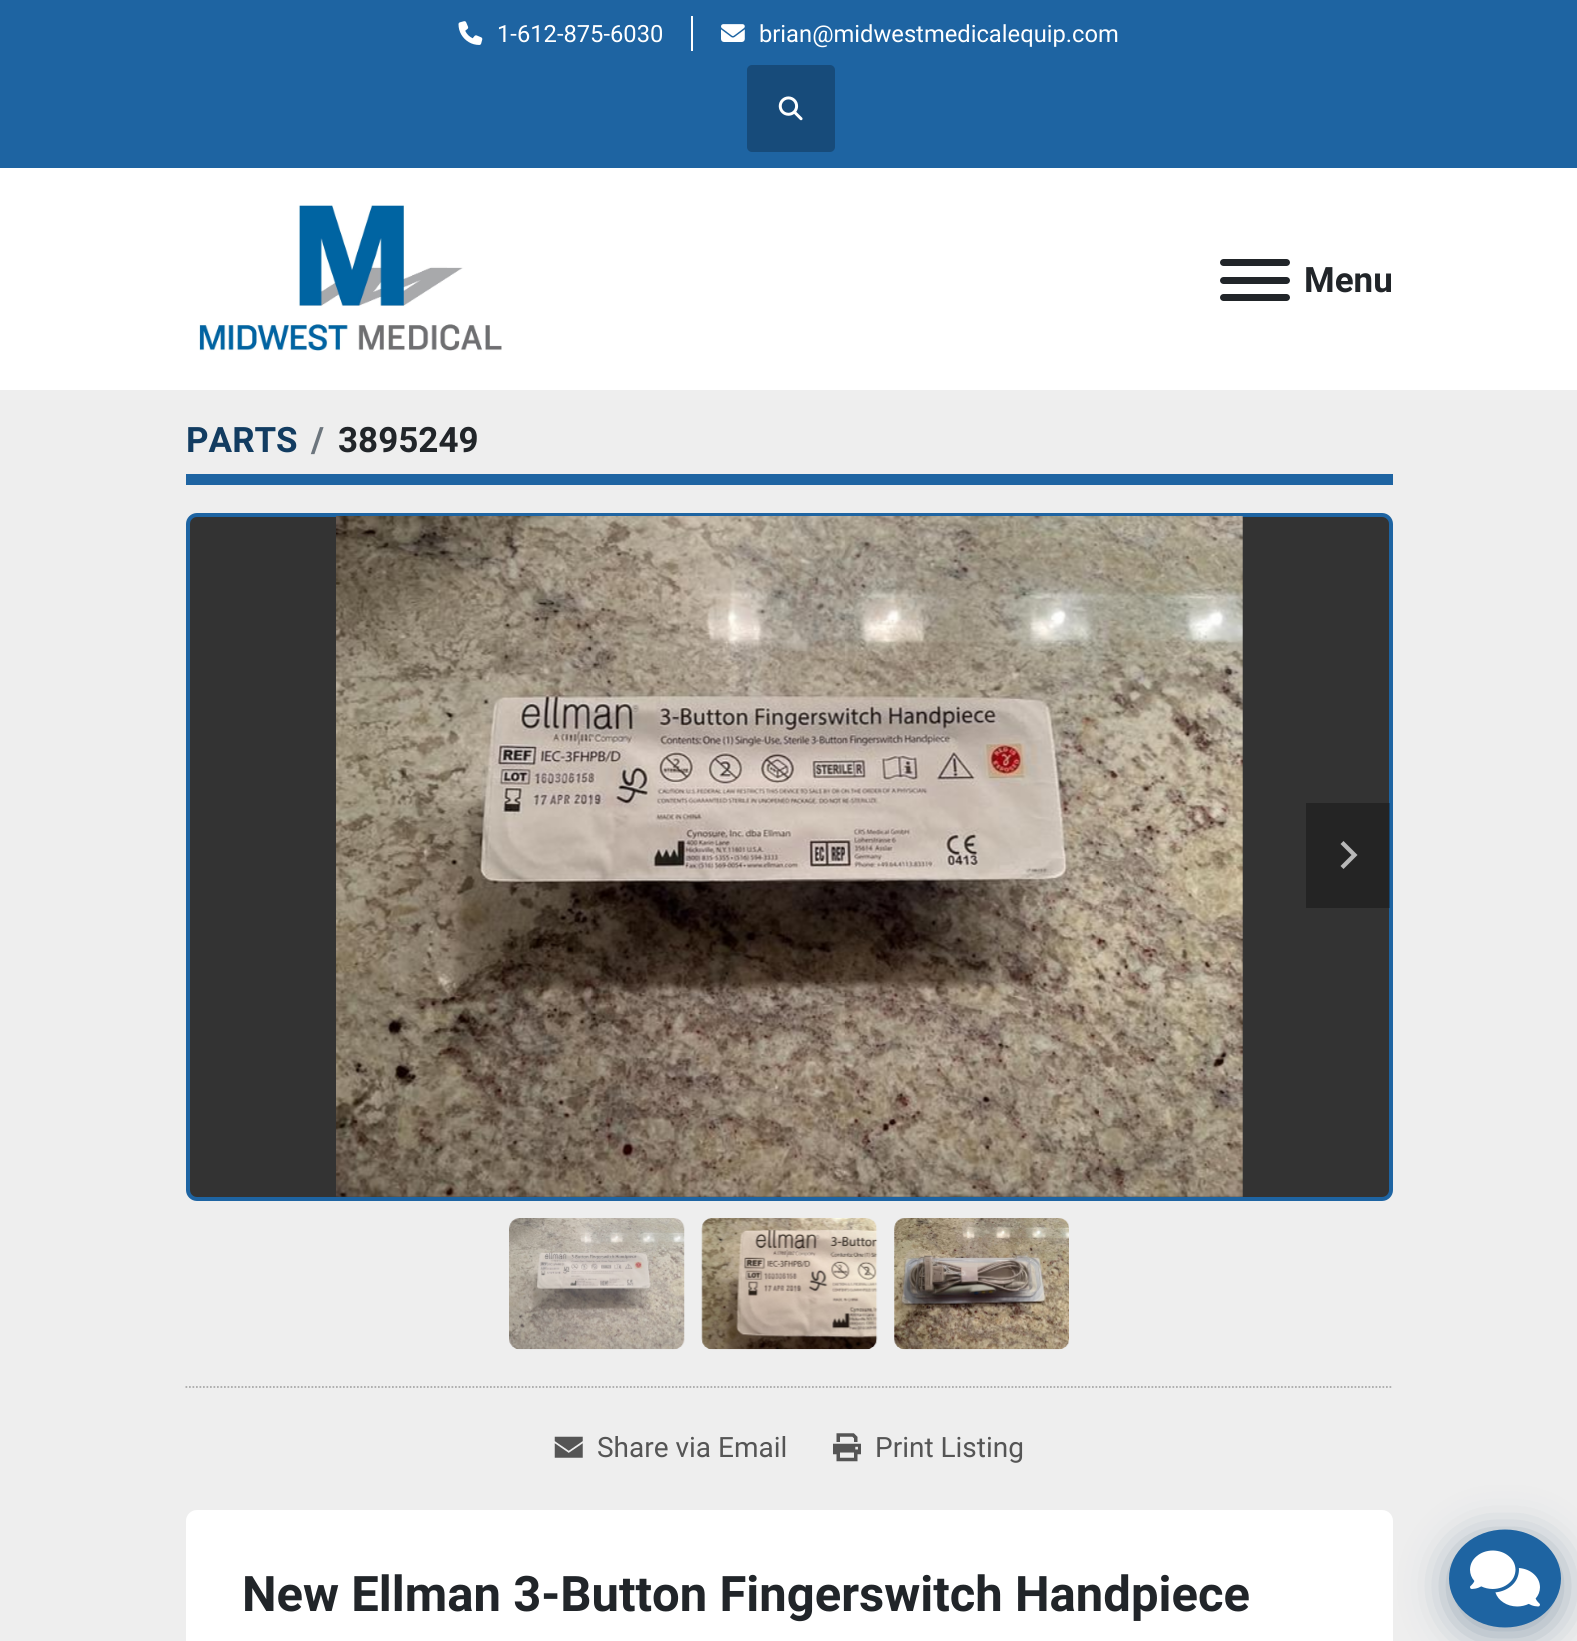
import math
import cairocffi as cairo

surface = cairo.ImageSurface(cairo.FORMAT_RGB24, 1577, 1641)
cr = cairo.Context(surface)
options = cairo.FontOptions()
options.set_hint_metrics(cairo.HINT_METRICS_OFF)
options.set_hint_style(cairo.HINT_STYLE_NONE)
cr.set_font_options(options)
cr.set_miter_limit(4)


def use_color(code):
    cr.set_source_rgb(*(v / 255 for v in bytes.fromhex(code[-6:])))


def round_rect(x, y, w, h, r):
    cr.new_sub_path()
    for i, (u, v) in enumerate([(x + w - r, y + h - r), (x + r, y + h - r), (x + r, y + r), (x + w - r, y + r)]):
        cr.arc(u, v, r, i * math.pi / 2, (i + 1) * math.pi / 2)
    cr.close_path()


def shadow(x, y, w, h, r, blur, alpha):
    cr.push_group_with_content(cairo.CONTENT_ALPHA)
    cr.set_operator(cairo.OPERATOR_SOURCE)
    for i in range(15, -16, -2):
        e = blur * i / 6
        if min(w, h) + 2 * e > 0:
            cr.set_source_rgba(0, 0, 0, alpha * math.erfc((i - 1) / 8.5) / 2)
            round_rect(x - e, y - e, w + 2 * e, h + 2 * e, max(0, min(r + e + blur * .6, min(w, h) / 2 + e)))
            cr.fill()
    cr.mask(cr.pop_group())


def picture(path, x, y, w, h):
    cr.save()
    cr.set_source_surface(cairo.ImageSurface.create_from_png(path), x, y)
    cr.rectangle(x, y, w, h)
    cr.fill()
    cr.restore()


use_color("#eeeeee")
cr.paint()
use_color("#1e64a2")
cr.rectangle(0, 0, 1577, 168)
cr.fill()
use_color("#ffffff")
cr.rectangle(691, 16, 2, 35)
cr.fill()
picture("img1.png", 458, 21, 25, 24)
cr.select_font_face("Roboto")
cr.set_font_size(23.75)
cr.move_to(497, 42)
cr.show_text("1-612-875-6030")
picture("img2.png", 721, 24, 24, 18)
cr.move_to(759, 42)
cr.show_text("brian@midwestmedicalequip.com")
use_color("#174b7a")
round_rect(747, 65, 88, 87, 5)
cr.fill()
picture("img3.png", 778, 96, 25, 25)
use_color("#ffffff")
cr.rectangle(0, 168, 1577, 222)
cr.fill()
picture("img4.png", 199, 205, 303, 146)
use_color("#212529")
round_rect(1220, 277, 70, 7, 3.5)
cr.fill()
round_rect(1220, 259, 70, 7, 3.5)
cr.fill()
round_rect(1220, 294, 70, 7, 3.5)
cr.fill()
cr.select_font_face("Roboto", cairo.FONT_SLANT_NORMAL, cairo.FONT_WEIGHT_BOLD)
cr.set_font_size(35)
cr.move_to(1304, 292)
cr.show_text("Menu")
use_color("#1e64a2")
cr.rectangle(186, 474, 1207, 11)
cr.fill()
use_color("#123c61")
cr.move_to(186, 452)
cr.show_text("PARTS")
use_color("#6c757d")
cr.move_to(311, 452)
cr.show_text("/")
use_color("#212529")
cr.move_to(338, 452)
cr.show_text("3895249")
use_color("#333333")
round_rect(188, 515, 1203, 684, 9)
cr.fill_preserve()
use_color("#1e64a2")
cr.set_line_width(4)
cr.stroke()
picture("img5.png", 336, 516, 907, 681)
cr.set_source_rgba(0, 0, 0, 0.29)
cr.rectangle(1306, 803, 84, 105)
cr.fill()
use_color("#b8b8b8")
cr.new_path()
cr.move_to(1357.5, 855)
cr.line_to(1343.5, 869)
cr.line_to(1340.5, 866)
cr.line_to(1351.5, 855)
cr.line_to(1340.5, 844)
cr.line_to(1343.5, 841)
cr.close_path()
cr.fill()
picture("img6.png", 509, 1218, 176, 132)
picture("img7.png", 701, 1218, 177, 132)
picture("img8.png", 894, 1218, 175, 132)
cr.new_path()
cr.move_to(185.5, 1387)
cr.line_to(1393, 1387)
use_color("#aaaaaa")
cr.set_line_width(1.8)
cr.set_dash([1.75, 1.75])
cr.stroke()
picture("img9.png", 554, 1436, 29, 22)
cr.select_font_face("Roboto")
cr.set_font_size(28)
use_color("#555555")
cr.move_to(597, 1457)
cr.show_text("Share via Email")
picture("img10.png", 833, 1433, 28, 29)
cr.move_to(875, 1457)
cr.show_text("Print Listing")
use_color("#ffffff")
round_rect(186, 1510, 1207, 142, 11)
cr.fill()
cr.select_font_face("Roboto", cairo.FONT_SLANT_NORMAL, cairo.FONT_WEIGHT_BOLD)
cr.set_font_size(49)
use_color("#212529")
cr.move_to(242, 1611)
cr.show_text("New Ellman 3-Button Fingerswitch Handpiece")
use_color("#123c61")
shadow(1449, 1537, 112, 98, 49, 21, 0.4)
use_color("#1e64a2")
cr.new_path()
cr.move_to(1505, 1529.5)
cr.curve_to(1536, 1529.5, 1561, 1551.5, 1561, 1578.5)
cr.curve_to(1561, 1605.5, 1536, 1627.5, 1505, 1627.5)
cr.curve_to(1474, 1627.5, 1449, 1605.5, 1449, 1578.5)
cr.curve_to(1449, 1551.5, 1474, 1529.5, 1505, 1529.5)
cr.close_path()
cr.fill()
picture("img11.png", 1470, 1550, 70, 57)
surface.write_to_png("result.png")
